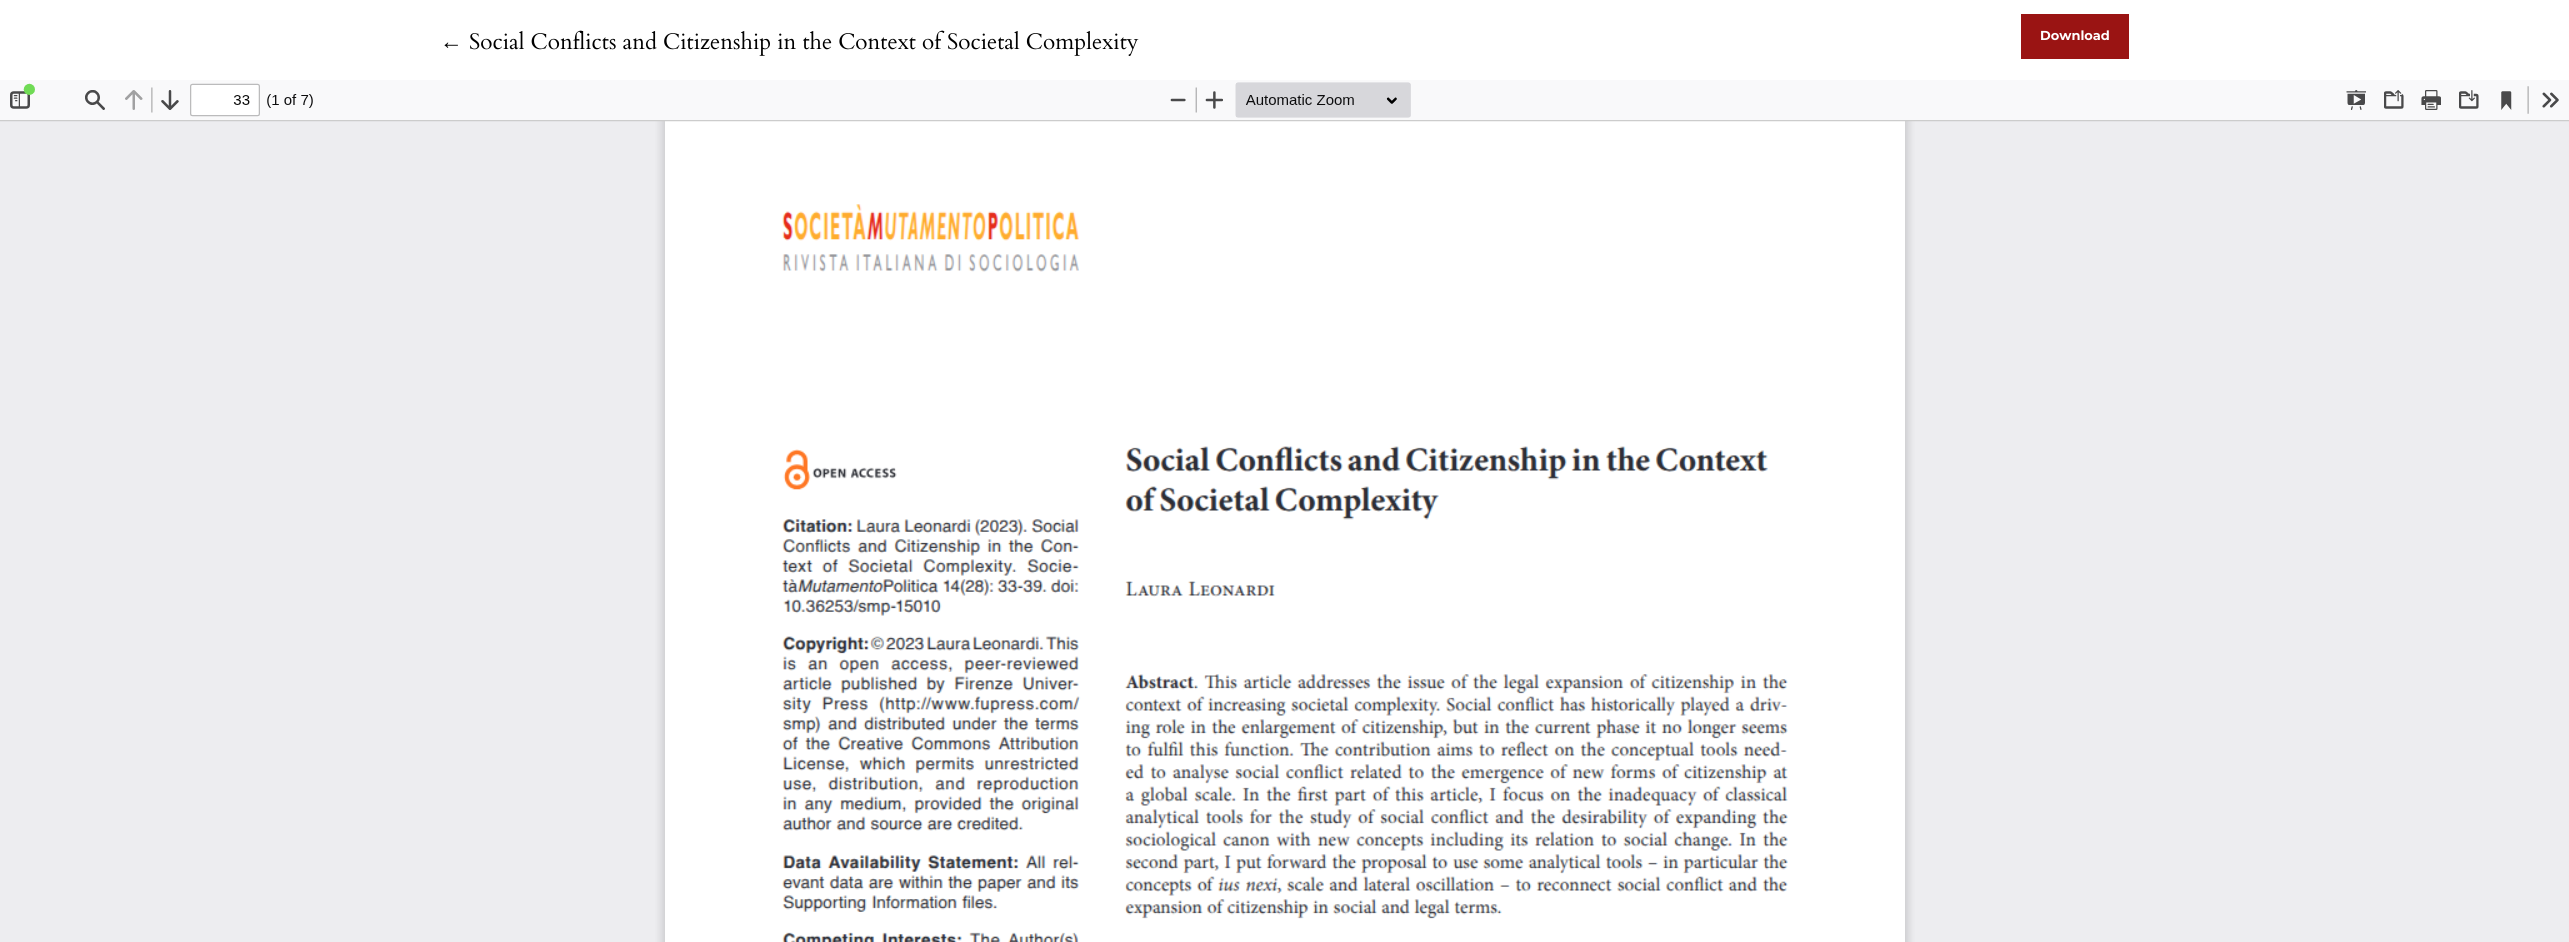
import math
import cairocffi as cairo

surface = cairo.ImageSurface(cairo.FORMAT_RGB24, 2569, 942)
cr = cairo.Context(surface)
options = cairo.FontOptions()
options.set_hint_metrics(cairo.HINT_METRICS_OFF)
options.set_hint_style(cairo.HINT_STYLE_NONE)
cr.set_font_options(options)
cr.set_miter_limit(4)


def use_color(code):
    cr.set_source_rgb(*(v / 255 for v in bytes.fromhex(code[-6:])))


def picture(path, x, y, w, h):
    cr.save()
    cr.set_source_surface(cairo.ImageSurface.create_from_png(path), x, y)
    cr.rectangle(x, y, w, h)
    cr.fill()
    cr.restore()


use_color("#ffffff")
cr.paint()
cr.select_font_face("Liberation Serif")
cr.set_font_size(22.5)
use_color("#000000")
cr.move_to(440, 49)
cr.show_text("←")
cr.select_font_face("Cardo")
cr.move_to(469, 49)
cr.show_text("Social Conflicts and Citizenship in the Context of Societal Complexity")
use_color("#9a1413")
cr.rectangle(2021, 14, 108, 45)
cr.fill()
cr.select_font_face("Montserrat", cairo.FONT_SLANT_NORMAL, cairo.FONT_WEIGHT_BOLD)
cr.set_font_size(13)
use_color("#ffffff")
cr.move_to(2040, 40)
cr.show_text("Download")
picture("img1.png", 0, 80, 2569, 862)
surface.write_to_png("result.png")
